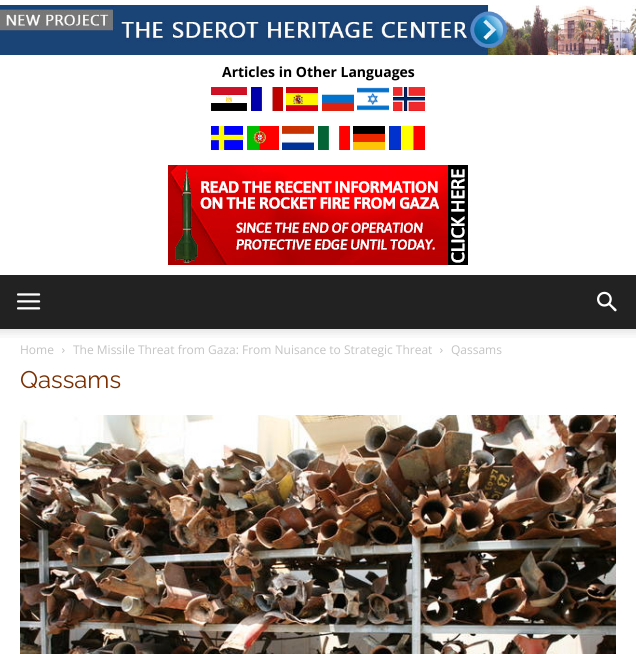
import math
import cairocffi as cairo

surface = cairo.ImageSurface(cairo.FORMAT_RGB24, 636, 654)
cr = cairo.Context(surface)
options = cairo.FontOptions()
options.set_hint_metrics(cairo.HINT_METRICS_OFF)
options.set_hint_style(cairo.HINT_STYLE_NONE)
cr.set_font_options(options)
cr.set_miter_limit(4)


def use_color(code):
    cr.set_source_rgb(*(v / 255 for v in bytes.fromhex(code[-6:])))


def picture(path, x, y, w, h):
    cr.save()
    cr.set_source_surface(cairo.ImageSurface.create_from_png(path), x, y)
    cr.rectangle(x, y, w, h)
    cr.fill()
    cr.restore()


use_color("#ffffff")
cr.paint()
picture("img1.png", 0, 5, 636, 50)
cr.select_font_face("Open Sans", cairo.FONT_SLANT_NORMAL, cairo.FONT_WEIGHT_BOLD)
cr.set_font_size(14)
use_color("#000000")
cr.move_to(222, 77)
cr.show_text("Articles in Other Languages")
picture("img2.png", 211, 87, 36, 24)
picture("img3.png", 251, 87, 32, 24)
picture("img4.png", 286, 87, 32, 24)
picture("img5.png", 322, 94, 32, 17)
picture("img6.png", 357, 87, 32, 24)
picture("img7.png", 393, 87, 32, 24)
picture("img8.png", 211, 126, 32, 24)
picture("img9.png", 247, 126, 32, 24)
picture("img10.png", 282, 126, 32, 24)
picture("img11.png", 318, 126, 32, 24)
picture("img12.png", 353, 126, 32, 24)
picture("img13.png", 389, 126, 36, 24)
picture("img14.png", 168, 165, 300, 100)
use_color("#222222")
cr.rectangle(0, 275, 636, 54)
cr.fill()
picture("img15.png", 17, 293, 24, 17)
picture("img16.png", 597, 291, 20, 21)
picture("img17.png", 0, 329, 636, 9)
cr.select_font_face("Open Sans")
cr.set_font_size(12)
use_color("#c3c3c3")
cr.move_to(20, 354)
cr.show_text("Home")
picture("img18.png", 62, 348, 3, 5)
cr.move_to(73, 354)
cr.show_text("The Missile Threat from Gaza: From Nuisance to Strategic Threat")
picture("img18.png", 440, 348, 3, 5)
cr.move_to(451, 354)
cr.show_text("Qassams")
cr.select_font_face("Raleway Thin")
cr.set_font_size(24)
use_color("#7b2e00")
cr.move_to(20, 388)
cr.show_text("Qassams")
picture("img19.png", 20, 415, 596, 239)
surface.write_to_png("result.png")
